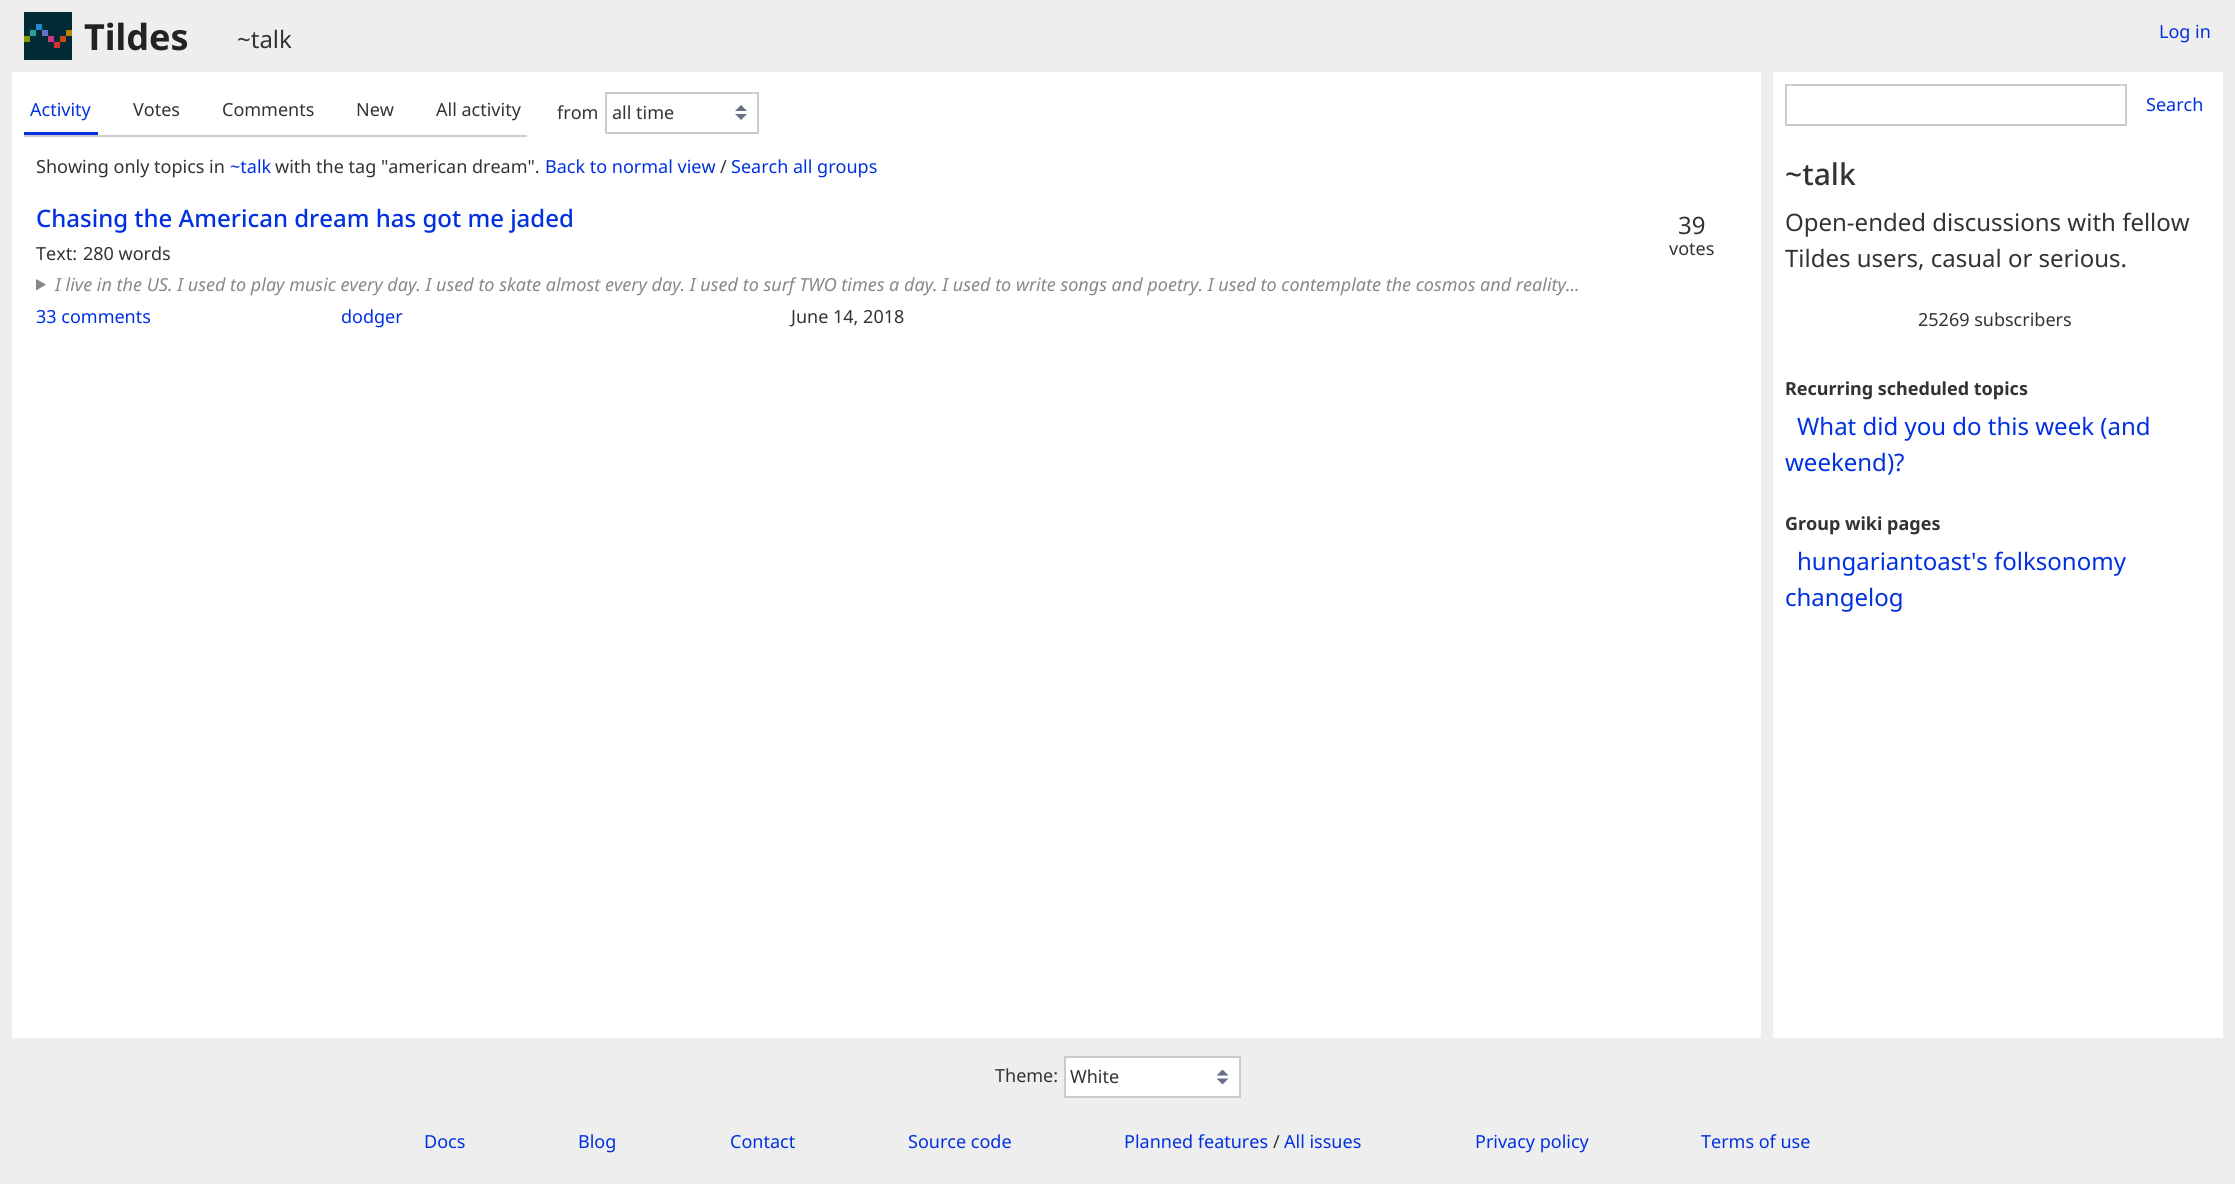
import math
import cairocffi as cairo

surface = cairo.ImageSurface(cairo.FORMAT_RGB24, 2235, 1184)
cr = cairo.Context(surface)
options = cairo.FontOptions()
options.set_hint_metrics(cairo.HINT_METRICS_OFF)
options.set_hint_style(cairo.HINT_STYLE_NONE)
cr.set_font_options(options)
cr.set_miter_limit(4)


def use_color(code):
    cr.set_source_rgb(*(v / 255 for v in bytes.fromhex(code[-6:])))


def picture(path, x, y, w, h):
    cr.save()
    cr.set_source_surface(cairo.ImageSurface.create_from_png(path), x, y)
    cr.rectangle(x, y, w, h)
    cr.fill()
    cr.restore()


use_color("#eeeeee")
cr.paint()
picture("img1.png", 24, 12, 48, 48)
cr.select_font_face("Noto Sans", cairo.FONT_SLANT_NORMAL, cairo.FONT_WEIGHT_BOLD)
cr.set_font_size(36)
use_color("#222222")
cr.move_to(84, 50)
cr.show_text("Tildes")
cr.select_font_face("Noto Sans")
cr.set_font_size(24)
use_color("#333333")
cr.move_to(237, 48)
cr.show_text("~talk")
cr.set_font_size(18)
use_color("#0030e0")
cr.move_to(2159, 38)
cr.show_text("Log in")
use_color("#ffffff")
cr.rectangle(12, 72, 1749, 966)
cr.fill()
use_color("#cccccc")
cr.rectangle(24, 135, 503, 2)
cr.fill()
use_color("#0030e0")
cr.rectangle(24, 132, 74, 3)
cr.fill()
cr.move_to(30, 116)
cr.show_text("Activity")
use_color("#333333")
cr.move_to(133, 116)
cr.show_text("Votes")
cr.move_to(222, 116)
cr.show_text("Comments")
cr.move_to(356, 116)
cr.show_text("New")
cr.move_to(436, 116)
cr.show_text("All activity")
cr.move_to(557, 119)
cr.show_text("from")
picture("img2.png", 735, 105, 12, 15)
cr.rectangle(606, 93, 152, 40)
use_color("#cccccc")
cr.stroke()
use_color("#333333")
cr.move_to(612, 119)
cr.show_text("all time")
cr.move_to(36, 173)
cr.show_text("Showing only topics in")
use_color("#0030e0")
cr.move_to(230, 173)
cr.show_text("~talk")
use_color("#333333")
cr.move_to(275, 173)
cr.show_text("with the tag \"american dream\".")
use_color("#0030e0")
cr.move_to(545, 173)
cr.show_text("Back to normal view")
use_color("#333333")
cr.move_to(720, 173)
cr.show_text("/")
use_color("#0030e0")
cr.move_to(731, 173)
cr.show_text("Search all groups")
cr.select_font_face("Noto Sans Medium")
cr.set_font_size(24)
cr.move_to(36, 227)
cr.show_text("Chasing the American dream has got me jaded")
cr.select_font_face("Noto Sans")
use_color("#333333")
cr.move_to(1678, 234)
cr.show_text("39")
cr.set_font_size(18)
cr.move_to(1669, 255)
cr.show_text("votes")
cr.move_to(36, 260)
cr.show_text("Text:")
cr.move_to(83, 260)
cr.show_text("280 words")
use_color("#888888")
cr.new_path()
cr.move_to(36, 279)
cr.line_to(46, 284.5)
cr.line_to(36, 290.5)
cr.close_path()
cr.fill()
cr.select_font_face("Noto Sans", cairo.FONT_SLANT_ITALIC)
cr.move_to(55, 291)
cr.show_text("I live in the US. I used to play music every day. I used to skate almost every day. I used to surf TWO times a day. I used to write songs and poetry. I used to contemplate the cosmos and reality...")
cr.select_font_face("Noto Sans")
use_color("#0030e0")
cr.move_to(36, 323)
cr.show_text("33 comments")
cr.move_to(341, 323)
cr.show_text("dodger")
use_color("#333333")
cr.move_to(791, 323)
cr.show_text("June 14, 2018")
use_color("#ffffff")
cr.rectangle(1773, 72, 450, 966)
cr.fill()
cr.rectangle(1786, 85, 340, 40)
use_color("#cccccc")
cr.stroke()
use_color("#0030e0")
cr.move_to(2146, 111)
cr.show_text("Search")
cr.select_font_face("Noto Sans Medium")
cr.set_font_size(30)
use_color("#333333")
cr.move_to(1785, 185)
cr.show_text("~talk")
cr.select_font_face("Noto Sans")
cr.set_font_size(24)
cr.move_to(1785, 231)
cr.show_text("Open-ended discussions with fellow")
cr.move_to(1785, 267)
cr.show_text("Tildes users, casual or serious.")
cr.set_font_size(18)
cr.move_to(1918, 326)
cr.show_text("25269 subscribers")
cr.select_font_face("Noto Sans", cairo.FONT_SLANT_NORMAL, cairo.FONT_WEIGHT_BOLD)
cr.move_to(1785, 395)
cr.show_text("Recurring scheduled topics")
cr.select_font_face("Noto Sans")
cr.set_font_size(24)
use_color("#0030e0")
cr.move_to(1797, 435)
cr.show_text("What did you do this week (and")
cr.move_to(1785, 471)
cr.show_text("weekend)?")
cr.select_font_face("Noto Sans", cairo.FONT_SLANT_NORMAL, cairo.FONT_WEIGHT_BOLD)
cr.set_font_size(18)
use_color("#333333")
cr.move_to(1785, 530)
cr.show_text("Group wiki pages")
cr.select_font_face("Noto Sans")
cr.set_font_size(24)
use_color("#0030e0")
cr.move_to(1797, 570)
cr.show_text("hungariantoast's folksonomy")
cr.move_to(1785, 606)
cr.show_text("changelog")
cr.set_font_size(18)
use_color("#333333")
cr.move_to(995, 1082)
cr.show_text("Theme:")
use_color("#ffffff")
cr.rectangle(1066, 1058, 173, 38)
cr.fill()
picture("img3.png", 1217, 1070, 12, 15)
cr.rectangle(1065, 1057, 175, 40)
use_color("#cccccc")
cr.stroke()
use_color("#333333")
cr.move_to(1070, 1083)
cr.show_text("White")
use_color("#0030e0")
cr.move_to(424, 1148)
cr.show_text("Docs")
cr.move_to(578, 1148)
cr.show_text("Blog")
cr.move_to(730, 1148)
cr.show_text("Contact")
cr.move_to(908, 1148)
cr.show_text("Source code")
cr.move_to(1124, 1148)
cr.show_text("Planned features")
use_color("#333333")
cr.move_to(1273, 1148)
cr.show_text("/")
use_color("#0030e0")
cr.move_to(1284, 1148)
cr.show_text("All issues")
cr.move_to(1475, 1148)
cr.show_text("Privacy policy")
cr.move_to(1701, 1148)
cr.show_text("Terms of use")
surface.write_to_png("result.png")
